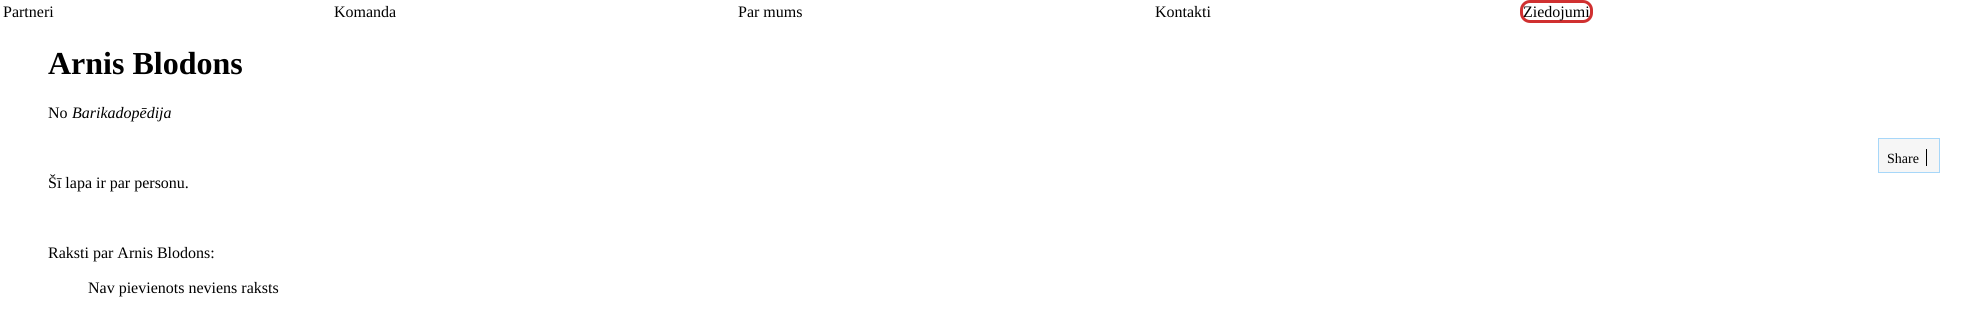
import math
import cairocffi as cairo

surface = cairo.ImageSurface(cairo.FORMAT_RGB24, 1988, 312)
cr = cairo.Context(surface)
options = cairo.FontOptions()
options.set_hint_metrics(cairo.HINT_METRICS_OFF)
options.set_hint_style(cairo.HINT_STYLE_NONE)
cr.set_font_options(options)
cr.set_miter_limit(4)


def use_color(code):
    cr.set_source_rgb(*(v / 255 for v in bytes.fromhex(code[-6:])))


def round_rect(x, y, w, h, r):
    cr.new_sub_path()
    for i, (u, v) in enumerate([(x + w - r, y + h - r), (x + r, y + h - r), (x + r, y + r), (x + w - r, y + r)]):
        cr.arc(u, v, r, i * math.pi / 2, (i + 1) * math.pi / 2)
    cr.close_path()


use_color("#ffffff")
cr.paint()
cr.select_font_face("Liberation Serif")
cr.set_font_size(16)
use_color("#000000")
cr.move_to(3, 17)
cr.show_text("Partneri")
cr.move_to(334, 17)
cr.show_text("Komanda")
cr.move_to(738, 17)
cr.show_text("Par mums")
cr.move_to(1155, 17)
cr.show_text("Kontakti")
round_rect(1521.5, 1.5, 70, 20, 8.5)
use_color("#d03030")
cr.set_line_width(3)
cr.stroke()
use_color("#000000")
cr.move_to(1523, 17)
cr.show_text("Ziedojumi")
cr.select_font_face("Liberation Serif", cairo.FONT_SLANT_NORMAL, cairo.FONT_WEIGHT_BOLD)
cr.set_font_size(32)
cr.move_to(48, 74)
cr.show_text("Arnis Blodons")
cr.select_font_face("Liberation Serif")
cr.set_font_size(16)
cr.move_to(48, 118)
cr.show_text("No")
cr.select_font_face("Liberation Serif", cairo.FONT_SLANT_ITALIC)
cr.move_to(72, 118)
cr.show_text("Barikadopēdija")
use_color("#f6f6f6")
cr.rectangle(1878.5, 138.5, 61, 34)
cr.fill_preserve()
use_color("#a7d7f9")
cr.set_line_width(1)
cr.stroke()
cr.select_font_face("Liberation Serif")
cr.set_font_size(14)
use_color("#000000")
cr.move_to(1887, 163)
cr.show_text("Share")
cr.rectangle(1926, 149, 1, 17)
cr.fill()
cr.set_font_size(16)
cr.move_to(48, 188)
cr.show_text("Šī lapa ir par personu.")
cr.move_to(48, 258)
cr.show_text("Raksti par Arnis Blodons:")
cr.move_to(88, 293)
cr.show_text("Nav pievienots neviens raksts")
surface.write_to_png("result.png")
